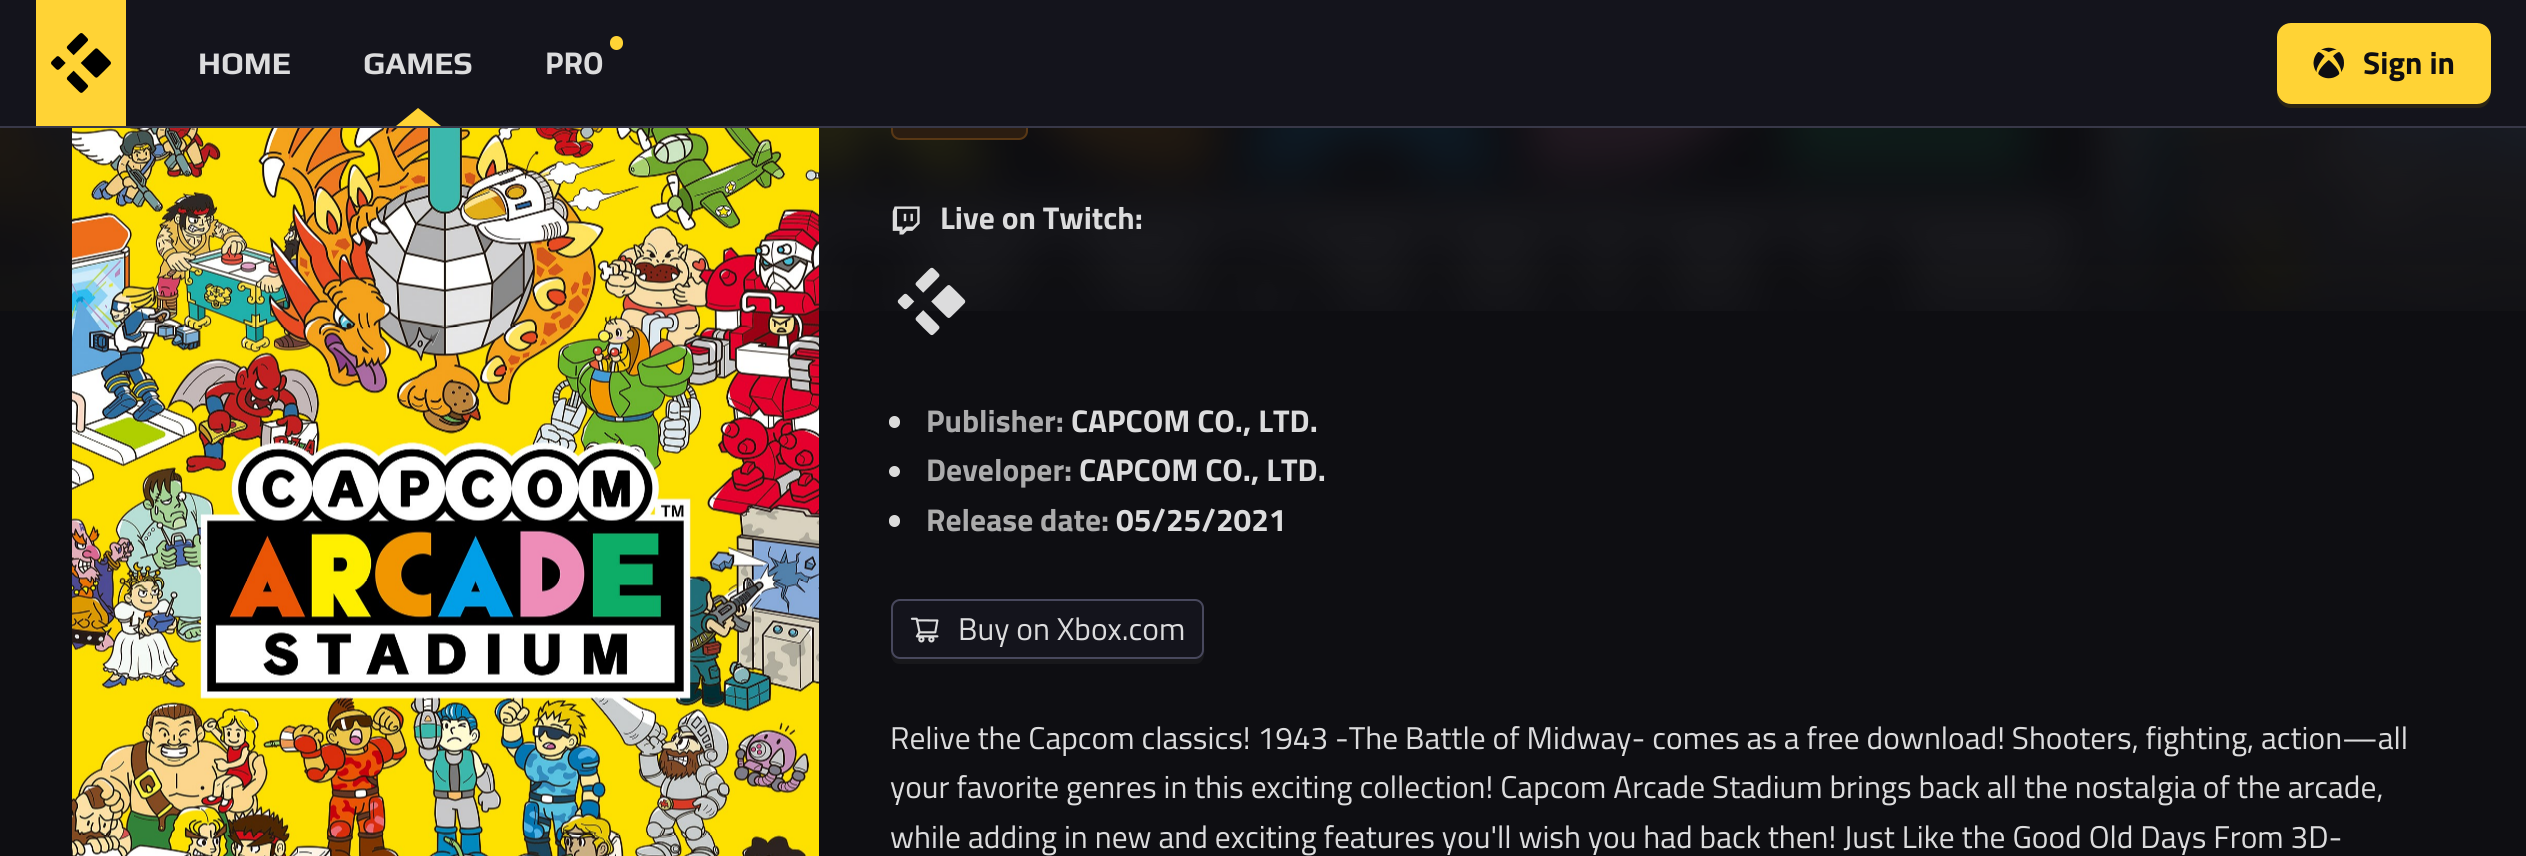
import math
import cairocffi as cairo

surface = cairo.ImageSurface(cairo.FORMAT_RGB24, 2526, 856)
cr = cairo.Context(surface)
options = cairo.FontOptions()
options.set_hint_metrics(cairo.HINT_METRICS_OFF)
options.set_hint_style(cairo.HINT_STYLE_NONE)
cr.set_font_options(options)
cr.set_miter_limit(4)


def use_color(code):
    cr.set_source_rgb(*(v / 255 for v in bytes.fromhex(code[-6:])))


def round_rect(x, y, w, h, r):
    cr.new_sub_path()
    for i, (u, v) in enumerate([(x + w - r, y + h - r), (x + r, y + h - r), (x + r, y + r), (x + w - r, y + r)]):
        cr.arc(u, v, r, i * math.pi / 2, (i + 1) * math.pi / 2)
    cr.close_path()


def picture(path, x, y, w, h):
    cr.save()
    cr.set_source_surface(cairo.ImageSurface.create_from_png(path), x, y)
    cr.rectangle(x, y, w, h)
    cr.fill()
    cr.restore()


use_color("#0e0e12")
cr.paint()
picture("img7.png", 0, 128, 2526, 183)
use_color("#2b1d11")
round_rect(892, 73, 135, 66, 8)
cr.fill_preserve()
use_color("#593815")
cr.stroke()
use_color("#14141c")
cr.rectangle(0, 0, 2526, 126)
cr.fill()
use_color("#383848")
cr.rectangle(0, 126, 2526, 2)
cr.fill()
use_color("#ffd335")
cr.rectangle(36, 0, 90, 126)
cr.fill()
picture("img1.png", 51, 33, 60, 60)
cr.select_font_face("Play", cairo.FONT_SLANT_NORMAL, cairo.FONT_WEIGHT_BOLD)
cr.set_font_size(31.5)
use_color("#dcdcdd")
cr.move_to(198, 74)
cr.show_text("HOME")
cr.move_to(363, 74)
cr.show_text("GAMES")
use_color("#ffd335")
cr.new_path()
cr.move_to(441, 126)
cr.line_to(396, 126)
cr.line_to(418, 108)
cr.close_path()
cr.fill()
round_rect(610, 36, 13, 14, 6.5)
cr.fill()
cr.select_font_face("Titillium Web", cairo.FONT_SLANT_NORMAL, cairo.FONT_WEIGHT_BOLD)
use_color("#dcdcdd")
cr.move_to(545, 74)
cr.show_text("PRO")
use_color("#2c2514")
cr.new_path()
cr.move_to(2277, 90)
cr.line_to(2277, 97)
cr.curve_to(2279, 103, 2284, 108, 2291, 108)
cr.line_to(2477, 108)
cr.curve_to(2494, 108, 2491, 88, 2491, 76)
cr.line_to(2491, 38)
cr.line_to(2491, 90)
cr.curve_to(2491, 97, 2485, 104, 2477, 104)
cr.line_to(2290, 104)
cr.curve_to(2283, 104, 2277, 97, 2277, 90)
cr.close_path()
cr.fill()
use_color("#ffd335")
round_rect(2277, 23, 214, 81, 14)
cr.fill()
picture("img2.png", 2313, 47, 31, 32)
use_color("#0e0e12")
cr.move_to(2363, 74)
cr.show_text("Sign in")
picture("img3.png", 72, 128, 747, 728)
picture("img4.png", 892, 206, 28, 29)
use_color("#dcdcdd")
cr.move_to(940, 229)
cr.show_text("Live on Twitch:")
picture("img5.png", 897, 267, 69, 69)
use_color("#dbdbdb")
round_rect(889, 416, 11, 12, 5.5)
cr.fill()
use_color("#ababac")
cr.move_to(926, 432)
cr.show_text("Publisher:")
use_color("#dcdcdd")
cr.move_to(1071, 432)
cr.show_text("CAPCOM CO., LTD.")
use_color("#dbdbdb")
cr.new_path()
cr.arc(894.5, 471.5, 5.5, 0, 2 * math.pi)
cr.fill()
use_color("#ababac")
cr.move_to(926, 481)
cr.show_text("Developer:")
use_color("#dcdcdd")
cr.move_to(1079, 481)
cr.show_text("CAPCOM CO., LTD.")
use_color("#dbdbdb")
round_rect(889, 515, 11, 12, 5.5)
cr.fill()
use_color("#ababac")
cr.move_to(926, 531)
cr.show_text("Release date:")
use_color("#dcdcdd")
cr.move_to(1116, 531)
cr.show_text("05/25/2021")
use_color("#18181b")
cr.new_path()
cr.move_to(891, 650)
cr.curve_to(891, 657, 892, 664, 900, 664)
cr.line_to(1195, 664)
cr.curve_to(1207, 664, 1204, 648, 1204, 641)
cr.line_to(1204, 610)
cr.line_to(1204, 650)
cr.curve_to(1204, 655, 1200, 659, 1195, 659)
cr.line_to(900, 659)
cr.curve_to(895, 659, 891, 655, 891, 650)
cr.close_path()
cr.fill()
use_color("#14141c")
round_rect(892, 600, 311, 58, 8)
cr.fill_preserve()
use_color("#48485d")
cr.stroke()
picture("img6.png", 910, 617, 29, 26)
cr.select_font_face("Titillium Web")
use_color("#dcdcdd")
cr.move_to(958, 640)
cr.show_text("Buy on Xbox.com")
cr.move_to(890, 749)
cr.show_text("Relive the Capcom classics! 1943 -The Battle of Midway- comes as a free download! Shooters, fighting, action—all")
cr.move_to(890, 798)
cr.show_text("your favorite genres in this exciting collection! Capcom Arcade Stadium brings back all the nostalgia of the arcade,")
cr.move_to(890, 848)
cr.show_text("while adding in new and exciting features you'll wish you had back then! Just Like the Good Old Days From 3D-")
surface.write_to_png("result.png")
